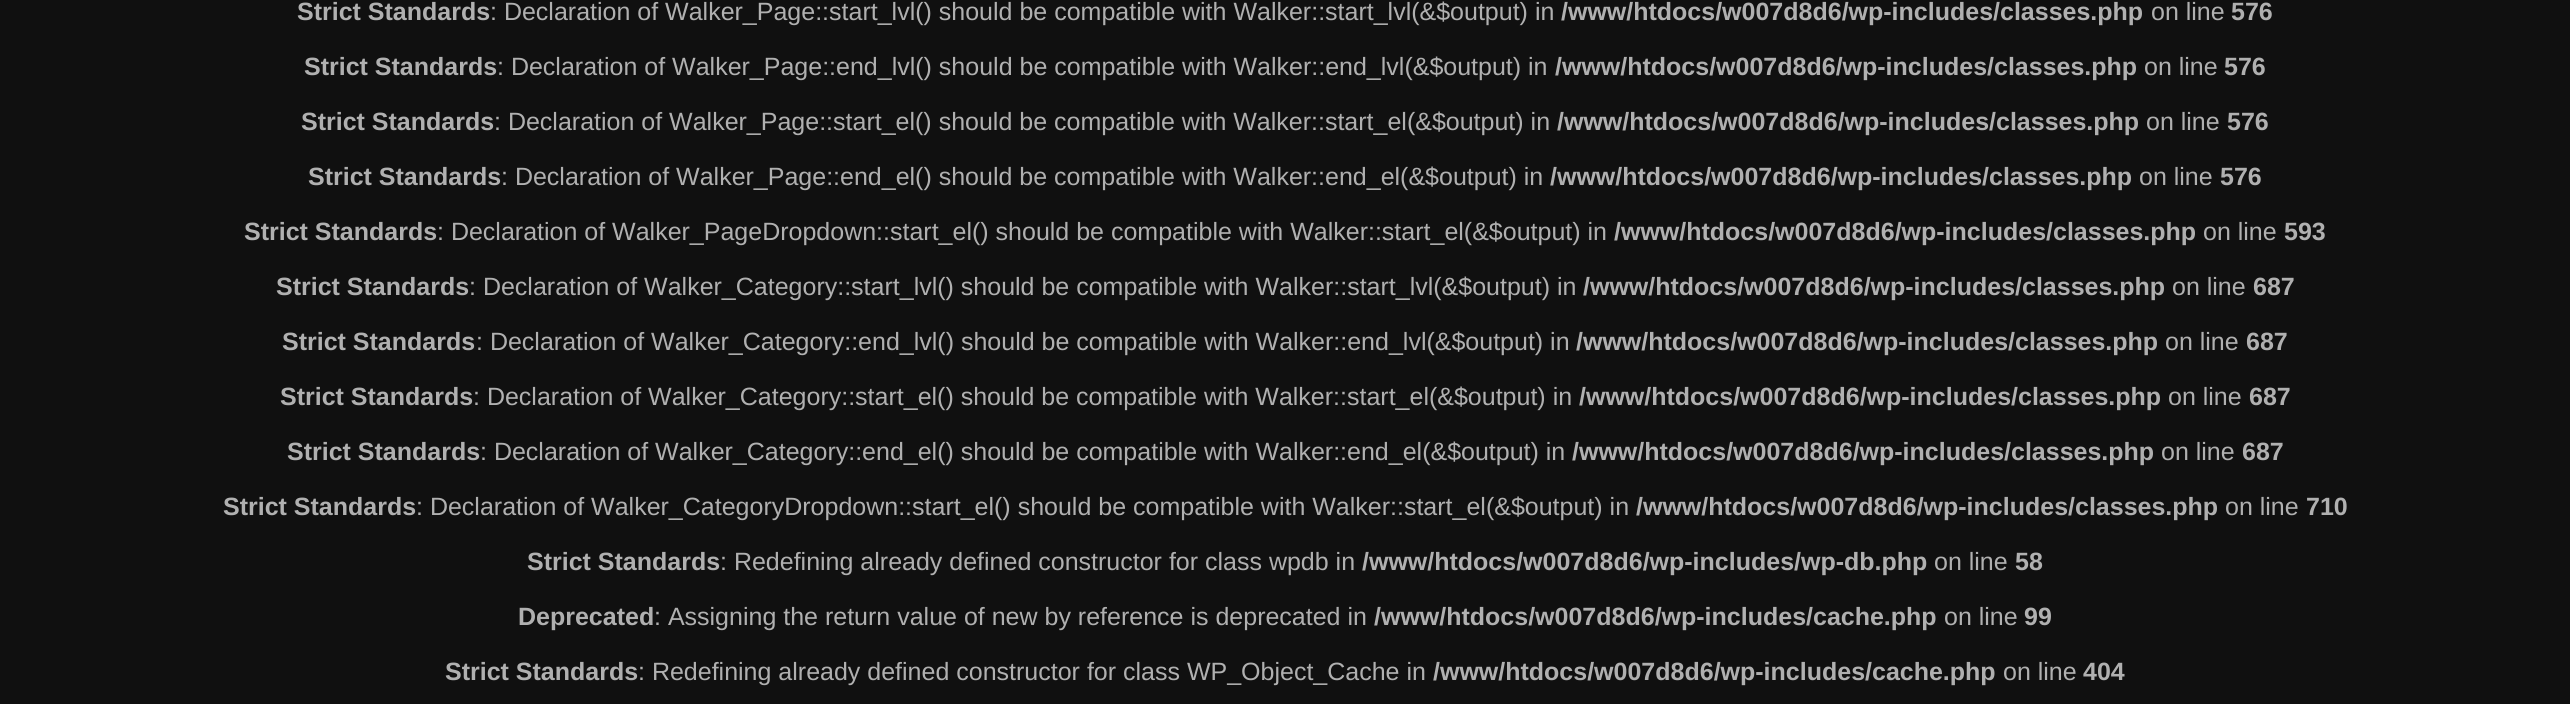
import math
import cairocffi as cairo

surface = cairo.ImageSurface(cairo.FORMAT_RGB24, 2570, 704)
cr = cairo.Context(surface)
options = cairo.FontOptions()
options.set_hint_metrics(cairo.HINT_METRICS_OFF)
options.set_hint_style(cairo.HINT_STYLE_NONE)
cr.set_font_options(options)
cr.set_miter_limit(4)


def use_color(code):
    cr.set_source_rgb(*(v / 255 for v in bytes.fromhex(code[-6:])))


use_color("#101010")
cr.paint()
cr.select_font_face("Liberation Sans", cairo.FONT_SLANT_NORMAL, cairo.FONT_WEIGHT_BOLD)
cr.set_font_size(25)
use_color("#b0b0b0")
cr.move_to(297, 20)
cr.show_text("Strict Standards")
cr.select_font_face("Liberation Sans")
cr.move_to(490, 20)
cr.show_text(": Declaration of Walker_Page::start_lvl() should be compatible with Walker::start_lvl(&$output) in")
cr.select_font_face("Liberation Sans", cairo.FONT_SLANT_NORMAL, cairo.FONT_WEIGHT_BOLD)
cr.move_to(1561, 20)
cr.show_text("/www/htdocs/w007d8d6/wp-includes/classes.php")
cr.select_font_face("Liberation Sans")
cr.move_to(2151, 20)
cr.show_text("on line")
cr.select_font_face("Liberation Sans", cairo.FONT_SLANT_NORMAL, cairo.FONT_WEIGHT_BOLD)
cr.move_to(2231, 20)
cr.show_text("576")
cr.move_to(304, 75)
cr.show_text("Strict Standards")
cr.select_font_face("Liberation Sans")
cr.move_to(497, 75)
cr.show_text(": Declaration of Walker_Page::end_lvl() should be compatible with Walker::end_lvl(&$output) in")
cr.select_font_face("Liberation Sans", cairo.FONT_SLANT_NORMAL, cairo.FONT_WEIGHT_BOLD)
cr.move_to(1555, 75)
cr.show_text("/www/htdocs/w007d8d6/wp-includes/classes.php")
cr.select_font_face("Liberation Sans")
cr.move_to(2144, 75)
cr.show_text("on line")
cr.select_font_face("Liberation Sans", cairo.FONT_SLANT_NORMAL, cairo.FONT_WEIGHT_BOLD)
cr.move_to(2224, 75)
cr.show_text("576")
cr.move_to(301, 130)
cr.show_text("Strict Standards")
cr.select_font_face("Liberation Sans")
cr.move_to(494, 130)
cr.show_text(": Declaration of Walker_Page::start_el() should be compatible with Walker::start_el(&$output) in")
cr.select_font_face("Liberation Sans", cairo.FONT_SLANT_NORMAL, cairo.FONT_WEIGHT_BOLD)
cr.move_to(1557, 130)
cr.show_text("/www/htdocs/w007d8d6/wp-includes/classes.php")
cr.select_font_face("Liberation Sans")
cr.move_to(2146, 130)
cr.show_text("on line")
cr.select_font_face("Liberation Sans", cairo.FONT_SLANT_NORMAL, cairo.FONT_WEIGHT_BOLD)
cr.move_to(2227, 130)
cr.show_text("576")
cr.move_to(308, 185)
cr.show_text("Strict Standards")
cr.select_font_face("Liberation Sans")
cr.move_to(501, 185)
cr.show_text(": Declaration of Walker_Page::end_el() should be compatible with Walker::end_el(&$output) in")
cr.select_font_face("Liberation Sans", cairo.FONT_SLANT_NORMAL, cairo.FONT_WEIGHT_BOLD)
cr.move_to(1550, 185)
cr.show_text("/www/htdocs/w007d8d6/wp-includes/classes.php")
cr.select_font_face("Liberation Sans")
cr.move_to(2139, 185)
cr.show_text("on line")
cr.select_font_face("Liberation Sans", cairo.FONT_SLANT_NORMAL, cairo.FONT_WEIGHT_BOLD)
cr.move_to(2220, 185)
cr.show_text("576")
cr.move_to(244, 240)
cr.show_text("Strict Standards")
cr.select_font_face("Liberation Sans")
cr.move_to(437, 240)
cr.show_text(": Declaration of Walker_PageDropdown::start_el() should be compatible with Walker::start_el(&$output) in")
cr.select_font_face("Liberation Sans", cairo.FONT_SLANT_NORMAL, cairo.FONT_WEIGHT_BOLD)
cr.move_to(1614, 240)
cr.show_text("/www/htdocs/w007d8d6/wp-includes/classes.php")
cr.select_font_face("Liberation Sans")
cr.move_to(2203, 240)
cr.show_text("on line")
cr.select_font_face("Liberation Sans", cairo.FONT_SLANT_NORMAL, cairo.FONT_WEIGHT_BOLD)
cr.move_to(2284, 240)
cr.show_text("593")
cr.move_to(276, 295)
cr.show_text("Strict Standards")
cr.select_font_face("Liberation Sans")
cr.move_to(469, 295)
cr.show_text(": Declaration of Walker_Category::start_lvl() should be compatible with Walker::start_lvl(&$output) in")
cr.select_font_face("Liberation Sans", cairo.FONT_SLANT_NORMAL, cairo.FONT_WEIGHT_BOLD)
cr.move_to(1583, 295)
cr.show_text("/www/htdocs/w007d8d6/wp-includes/classes.php")
cr.select_font_face("Liberation Sans")
cr.move_to(2172, 295)
cr.show_text("on line")
cr.select_font_face("Liberation Sans", cairo.FONT_SLANT_NORMAL, cairo.FONT_WEIGHT_BOLD)
cr.move_to(2253, 295)
cr.show_text("687")
cr.move_to(282, 350)
cr.show_text("Strict Standards")
cr.select_font_face("Liberation Sans")
cr.move_to(476, 350)
cr.show_text(": Declaration of Walker_Category::end_lvl() should be compatible with Walker::end_lvl(&$output) in")
cr.select_font_face("Liberation Sans", cairo.FONT_SLANT_NORMAL, cairo.FONT_WEIGHT_BOLD)
cr.move_to(1576, 350)
cr.show_text("/www/htdocs/w007d8d6/wp-includes/classes.php")
cr.select_font_face("Liberation Sans")
cr.move_to(2165, 350)
cr.show_text("on line")
cr.select_font_face("Liberation Sans", cairo.FONT_SLANT_NORMAL, cairo.FONT_WEIGHT_BOLD)
cr.move_to(2246, 350)
cr.show_text("687")
cr.move_to(280, 405)
cr.show_text("Strict Standards")
cr.select_font_face("Liberation Sans")
cr.move_to(473, 405)
cr.show_text(": Declaration of Walker_Category::start_el() should be compatible with Walker::start_el(&$output) in")
cr.select_font_face("Liberation Sans", cairo.FONT_SLANT_NORMAL, cairo.FONT_WEIGHT_BOLD)
cr.move_to(1579, 405)
cr.show_text("/www/htdocs/w007d8d6/wp-includes/classes.php")
cr.select_font_face("Liberation Sans")
cr.move_to(2168, 405)
cr.show_text("on line")
cr.select_font_face("Liberation Sans", cairo.FONT_SLANT_NORMAL, cairo.FONT_WEIGHT_BOLD)
cr.move_to(2249, 405)
cr.show_text("687")
cr.move_to(287, 460)
cr.show_text("Strict Standards")
cr.select_font_face("Liberation Sans")
cr.move_to(480, 460)
cr.show_text(": Declaration of Walker_Category::end_el() should be compatible with Walker::end_el(&$output) in")
cr.select_font_face("Liberation Sans", cairo.FONT_SLANT_NORMAL, cairo.FONT_WEIGHT_BOLD)
cr.move_to(1572, 460)
cr.show_text("/www/htdocs/w007d8d6/wp-includes/classes.php")
cr.select_font_face("Liberation Sans")
cr.move_to(2161, 460)
cr.show_text("on line")
cr.select_font_face("Liberation Sans", cairo.FONT_SLANT_NORMAL, cairo.FONT_WEIGHT_BOLD)
cr.move_to(2242, 460)
cr.show_text("687")
cr.move_to(223, 515)
cr.show_text("Strict Standards")
cr.select_font_face("Liberation Sans")
cr.move_to(416, 515)
cr.show_text(": Declaration of Walker_CategoryDropdown::start_el() should be compatible with Walker::start_el(&$output) in")
cr.select_font_face("Liberation Sans", cairo.FONT_SLANT_NORMAL, cairo.FONT_WEIGHT_BOLD)
cr.move_to(1636, 515)
cr.show_text("/www/htdocs/w007d8d6/wp-includes/classes.php")
cr.select_font_face("Liberation Sans")
cr.move_to(2225, 515)
cr.show_text("on line")
cr.select_font_face("Liberation Sans", cairo.FONT_SLANT_NORMAL, cairo.FONT_WEIGHT_BOLD)
cr.move_to(2306, 515)
cr.show_text("710")
cr.move_to(527, 570)
cr.show_text("Strict Standards")
cr.select_font_face("Liberation Sans")
cr.move_to(720, 570)
cr.show_text(": Redefining already defined constructor for class wpdb in")
cr.select_font_face("Liberation Sans", cairo.FONT_SLANT_NORMAL, cairo.FONT_WEIGHT_BOLD)
cr.move_to(1362, 570)
cr.show_text("/www/htdocs/w007d8d6/wp-includes/wp-db.php")
cr.select_font_face("Liberation Sans")
cr.move_to(1934, 570)
cr.show_text("on line")
cr.select_font_face("Liberation Sans", cairo.FONT_SLANT_NORMAL, cairo.FONT_WEIGHT_BOLD)
cr.move_to(2015, 570)
cr.show_text("58")
cr.move_to(518, 625)
cr.show_text("Deprecated")
cr.select_font_face("Liberation Sans")
cr.move_to(654, 625)
cr.show_text(": Assigning the return value of new by reference is deprecated in")
cr.select_font_face("Liberation Sans", cairo.FONT_SLANT_NORMAL, cairo.FONT_WEIGHT_BOLD)
cr.move_to(1374, 625)
cr.show_text("/www/htdocs/w007d8d6/wp-includes/cache.php")
cr.select_font_face("Liberation Sans")
cr.move_to(1944, 625)
cr.show_text("on line")
cr.select_font_face("Liberation Sans", cairo.FONT_SLANT_NORMAL, cairo.FONT_WEIGHT_BOLD)
cr.move_to(2024, 625)
cr.show_text("99")
cr.move_to(445, 680)
cr.show_text("Strict Standards")
cr.select_font_face("Liberation Sans")
cr.move_to(638, 680)
cr.show_text(": Redefining already defined constructor for class WP_Object_Cache in")
cr.select_font_face("Liberation Sans", cairo.FONT_SLANT_NORMAL, cairo.FONT_WEIGHT_BOLD)
cr.move_to(1433, 680)
cr.show_text("/www/htdocs/w007d8d6/wp-includes/cache.php")
cr.select_font_face("Liberation Sans")
cr.move_to(2003, 680)
cr.show_text("on line")
cr.select_font_face("Liberation Sans", cairo.FONT_SLANT_NORMAL, cairo.FONT_WEIGHT_BOLD)
cr.move_to(2083, 680)
cr.show_text("404")
surface.write_to_png("result.png")
